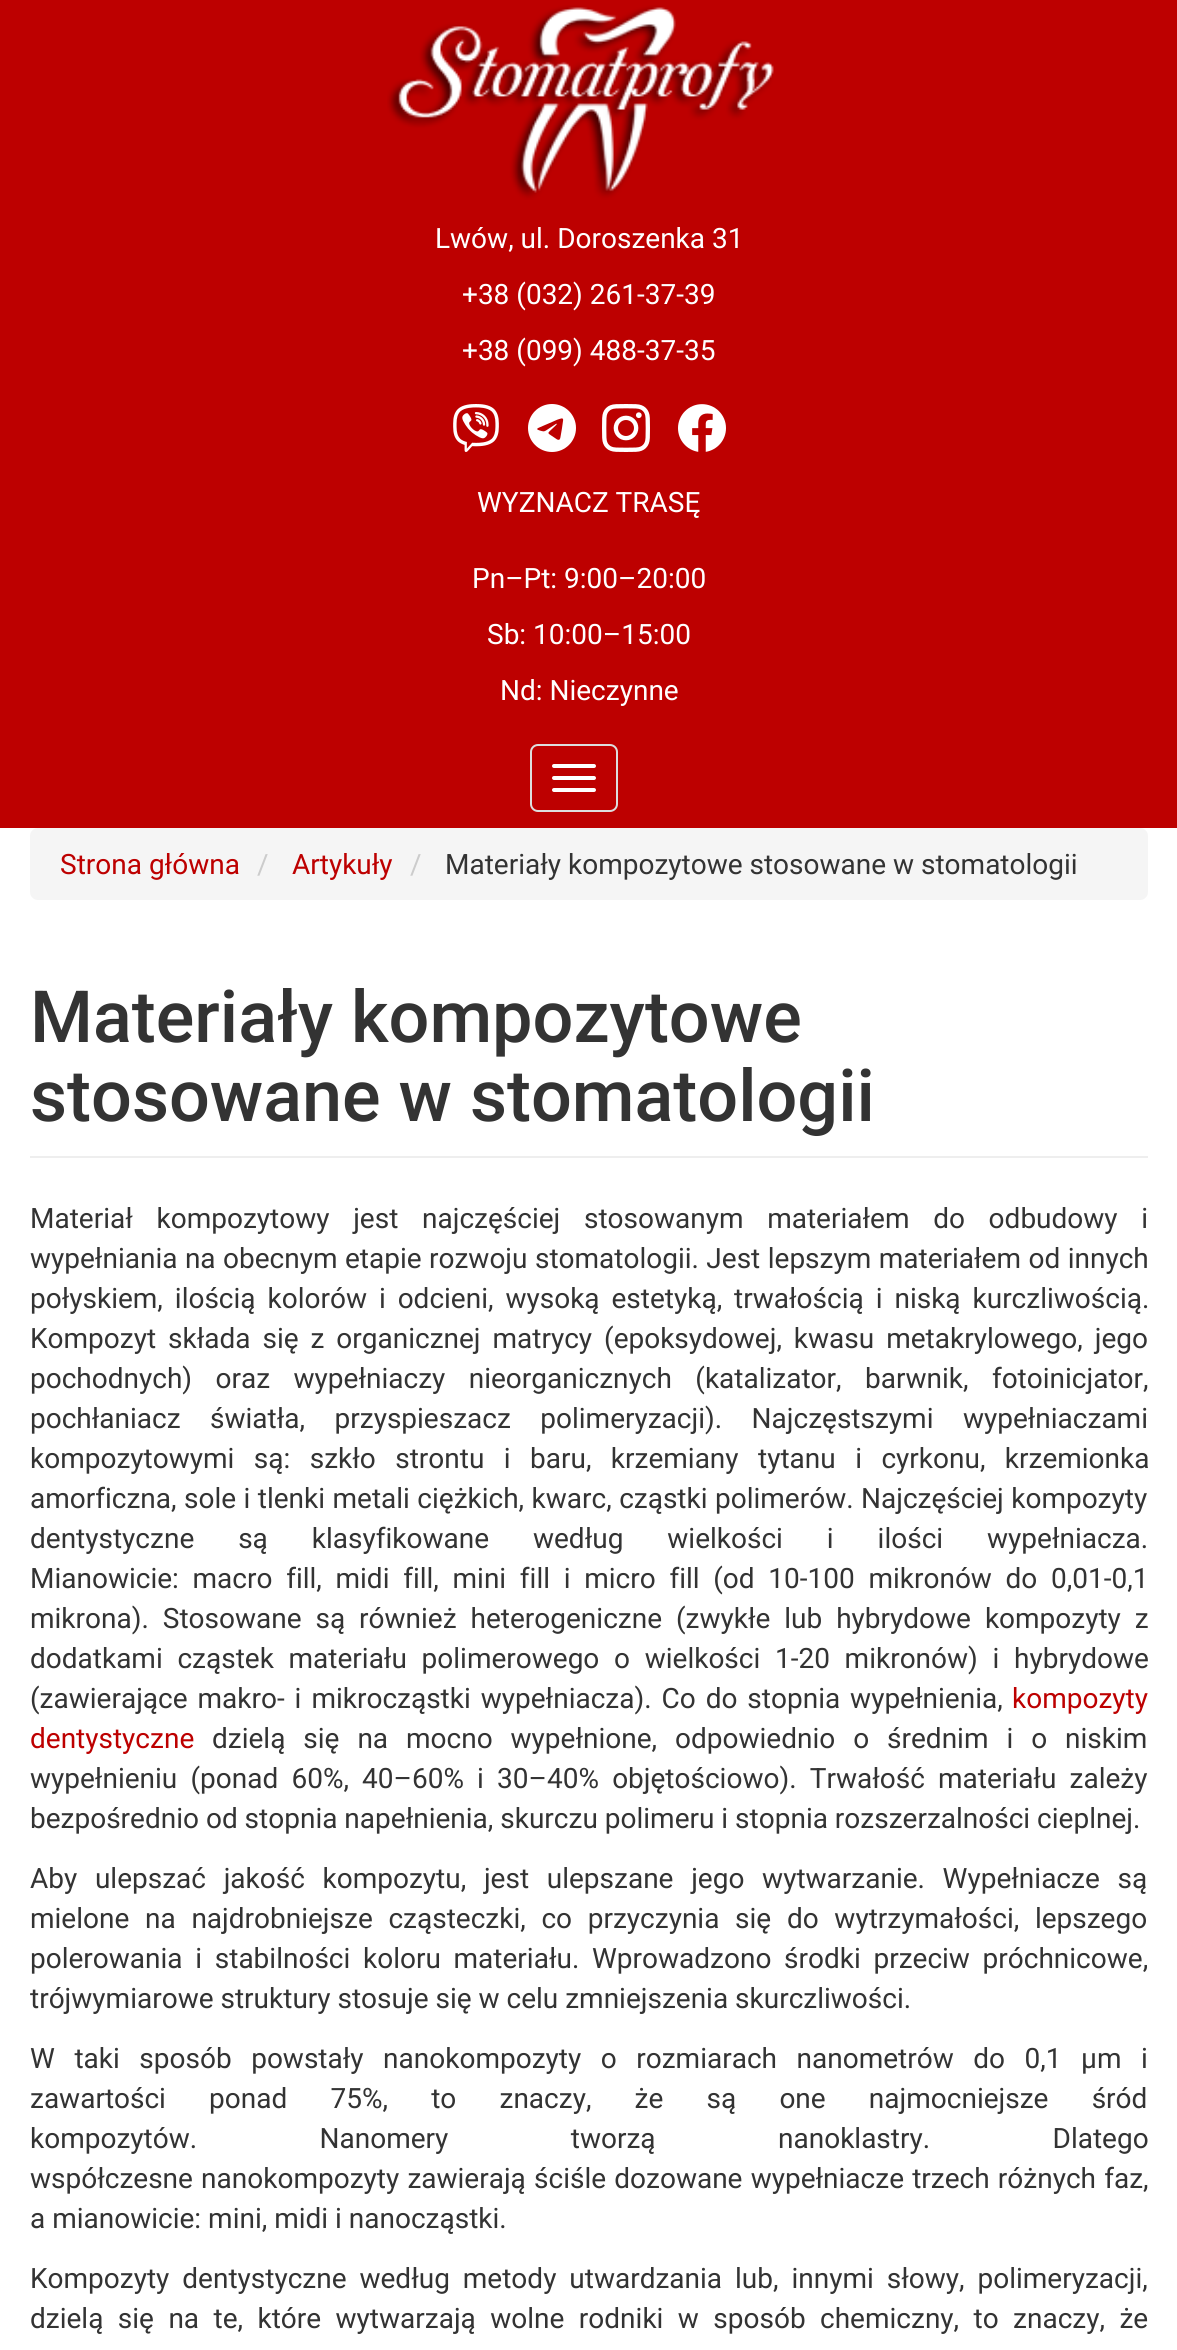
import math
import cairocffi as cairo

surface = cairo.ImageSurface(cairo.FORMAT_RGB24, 1177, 2350)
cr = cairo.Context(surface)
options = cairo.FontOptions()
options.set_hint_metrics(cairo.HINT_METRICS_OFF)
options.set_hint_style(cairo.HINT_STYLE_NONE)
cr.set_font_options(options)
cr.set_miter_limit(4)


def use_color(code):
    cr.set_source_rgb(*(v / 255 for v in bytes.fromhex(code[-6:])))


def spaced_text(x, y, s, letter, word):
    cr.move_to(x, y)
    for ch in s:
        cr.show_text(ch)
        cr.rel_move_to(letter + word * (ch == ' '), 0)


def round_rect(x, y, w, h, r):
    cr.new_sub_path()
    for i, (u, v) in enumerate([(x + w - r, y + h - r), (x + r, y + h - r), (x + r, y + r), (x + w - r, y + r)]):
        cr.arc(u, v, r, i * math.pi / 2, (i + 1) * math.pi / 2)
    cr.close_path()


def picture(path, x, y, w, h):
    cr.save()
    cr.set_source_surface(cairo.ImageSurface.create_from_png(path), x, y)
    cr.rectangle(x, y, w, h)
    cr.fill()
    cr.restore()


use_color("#ffffff")
cr.paint()
use_color("#bd0000")
cr.rectangle(0, 0, 1177, 828)
cr.fill()
picture("img1.png", 387, 5, 387, 195)
cr.select_font_face("Roboto")
cr.set_font_size(28)
use_color("#ffffff")
cr.move_to(435, 248)
cr.show_text("Lwów, ul. Doroszenka 31")
cr.move_to(462, 304)
cr.show_text("+38 (032) 261-37-39")
cr.move_to(462, 360)
cr.show_text("+38 (099) 488-37-35")
picture("img2.png", 453, 404, 46, 48)
picture("img3.png", 528, 404, 48, 48)
picture("img4.png", 602, 404, 48, 48)
picture("img5.png", 678, 404, 48, 48)
cr.move_to(477, 512)
cr.show_text("WYZNACZ TRASĘ")
cr.move_to(472, 588)
cr.show_text("Pn–Pt: 9:00–20:00")
cr.move_to(487, 644)
cr.show_text("Sb: 10:00–15:00")
cr.move_to(500, 700)
cr.show_text("Nd: Nieczynne")
round_rect(531, 745, 86, 66, 7)
use_color("#dddddd")
cr.stroke()
use_color("#ffffff")
round_rect(552, 764, 44, 4, 2)
cr.fill()
round_rect(552, 776, 44, 4, 2)
cr.fill()
round_rect(552, 788, 44, 4, 2)
cr.fill()
use_color("#f5f5f5")
round_rect(30, 828, 1118, 72, 8)
cr.fill()
use_color("#bd0000")
cr.move_to(60, 874)
cr.show_text("Strona główna")
use_color("#cccccc")
cr.move_to(257, 874)
cr.show_text("/")
use_color("#bd0000")
cr.move_to(292, 874)
cr.show_text("Artykuły")
use_color("#cccccc")
cr.move_to(410, 874)
cr.show_text("/")
use_color("#333333")
cr.move_to(445, 874)
cr.show_text("Materiały kompozytowe stosowane w stomatologii")
use_color("#eeeeee")
cr.rectangle(30, 1156, 1118, 2)
cr.fill()
cr.select_font_face("Roboto Medium")
cr.set_font_size(72)
use_color("#333333")
cr.move_to(30, 1042)
cr.show_text("Materiały kompozytowe")
cr.move_to(30, 1121)
cr.show_text("stosowane w stomatologii")
cr.select_font_face("Roboto")
cr.set_font_size(28)
spaced_text(30, 1228, "Materiał kompozytowy jest najczęściej stosowanym materiałem do odbudowy i", 0, 16.75)
spaced_text(30, 1268, "wypełniania na obecnym etapie rozwoju stomatologii. Jest lepszym materiałem od innych", 0, 0.5)
spaced_text(30, 1308, "połyskiem, ilością kolorów i odcieni, wysoką estetyką, trwałością i niską kurczliwością.", 0, 5)
spaced_text(30, 1348, "Kompozyt składa się z organicznej matrycy (epoksydowej, kwasu metakrylowego, jego", 0, 5)
spaced_text(30, 1388, "pochodnych) oraz wypełniaczy nieorganicznych (katalizator, barwnik, fotoinicjator,", 0, 16.5)
spaced_text(30, 1428, "pochłaniacz światła, przyspieszacz polimeryzacji). Najczęstszymi wypełniaczami", 0, 22.5)
spaced_text(30, 1468, "kompozytowymi są: szkło strontu i baru, krzemiany tytanu i cyrkonu, krzemionka", 0, 12.5)
spaced_text(30, 1508, "amorficzna, sole i tlenki metali ciężkich, kwarc, cząstki polimerów. Najczęściej kompozyty", 0, 0.5)
spaced_text(30, 1548, "dentystyczne są klasyfikowane według wielkości i ilości wypełniacza.", 0, 37)
spaced_text(30, 1588, "Mianowicie: macro fill, midi fill, mini fill i micro fill (od 10-100 mikronów do 0,01-0,1", 0, 6.75)
spaced_text(30, 1628, "mikrona). Stosowane są również heterogeniczne (zwykłe lub hybrydowe kompozyty z", 0, 7)
spaced_text(30, 1668, "dodatkami cząstek materiału polimerowego o wielkości 1-20 mikronów) i hybrydowe", 0, 7.75)
spaced_text(30, 1708, "(zawierające makro- i mikrocząstki wypełniacza). Co do stopnia wypełnienia,", 0, 3)
use_color("#bd0000")
cr.move_to(1012, 1708)
cr.show_text("kompozyty")
cr.move_to(30, 1748)
cr.show_text("dentystyczne")
use_color("#333333")
spaced_text(212, 1748, "dzielą się na mocno wypełnione, odpowiednio o średnim i o niskim", 0, 11)
spaced_text(30, 1788, "wypełnieniu (ponad 60%, 40–60% i 30–40% objętościowo). Trwałość materiału zależy", 0, 6.25)
cr.move_to(30, 1828)
cr.show_text("bezpośrednio od stopnia napełnienia, skurczu polimeru i stopnia rozszerzalności cieplnej.")
spaced_text(30, 1888, "Aby ulepszać jakość kompozytu, jest ulepszane jego wytwarzanie. Wypełniacze są", 0, 10.75)
spaced_text(30, 1928, "mielone na najdrobniejsze cząsteczki, co przyczynia się do wytrzymałości, lepszego", 0, 8.75)
spaced_text(30, 1968, "polerowania i stabilności koloru materiału. Wprowadzono środki przeciw próchnicowe,", 0, 5.75)
cr.move_to(30, 2008)
cr.show_text("trójwymiarowe struktury stosuje się w celu zmniejszenia skurczliwości.")
spaced_text(30, 2068, "W taki sposób powstały nanokompozyty o rozmiarach nanometrów do 0,1 μm i", 0, 12.6)
spaced_text(30, 2108, "zawartości ponad 75%, to znaczy, że są one najmocniejsze śród", 0, 36.25)
spaced_text(30, 2148, "kompozytów. Nanomery tworzą nanoklastry. Dlatego", 0, 115.5)
spaced_text(30, 2188, "współczesne nanokompozyty zawierają ściśle dozowane wypełniacze trzech różnych faz,", 0, 1.25)
cr.move_to(30, 2228)
cr.show_text("a mianowicie: mini, midi i nanocząstki.")
spaced_text(30, 2288, "Kompozyty dentystyczne według metody utwardzania lub, innymi słowy, polimeryzacji,", 0, 6)
spaced_text(30, 2328, "dzielą się na te, które wytwarzają wolne rodniki w sposób chemiczny, to znaczy, że", 0, 7.5)
surface.write_to_png("result.png")
